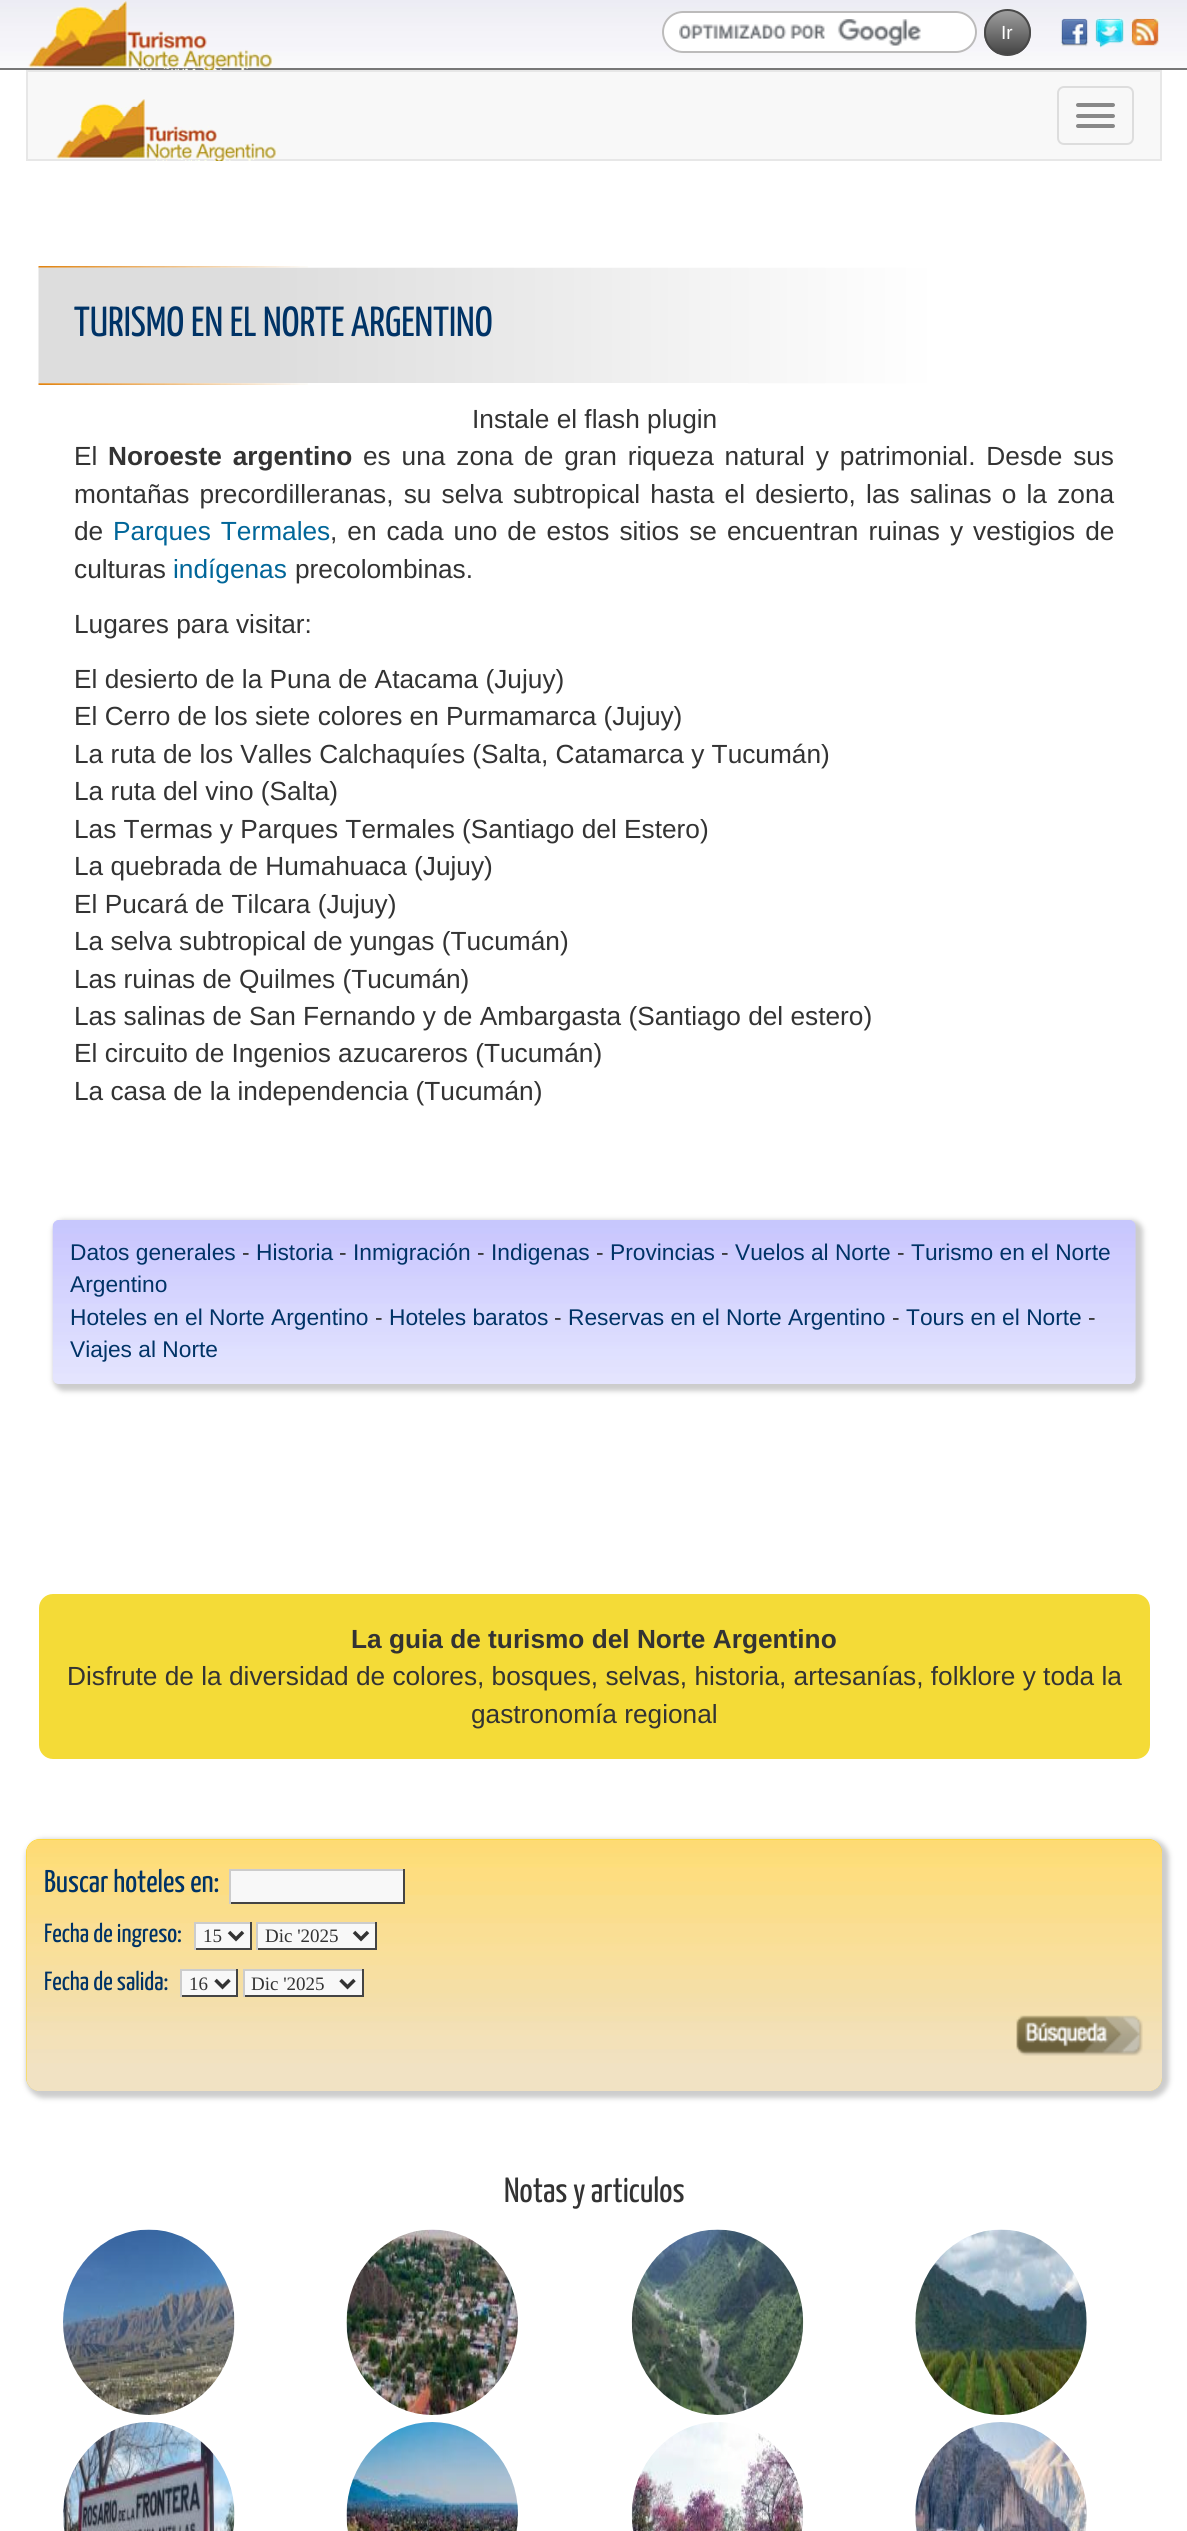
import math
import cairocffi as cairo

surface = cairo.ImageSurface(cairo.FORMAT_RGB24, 1187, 2531)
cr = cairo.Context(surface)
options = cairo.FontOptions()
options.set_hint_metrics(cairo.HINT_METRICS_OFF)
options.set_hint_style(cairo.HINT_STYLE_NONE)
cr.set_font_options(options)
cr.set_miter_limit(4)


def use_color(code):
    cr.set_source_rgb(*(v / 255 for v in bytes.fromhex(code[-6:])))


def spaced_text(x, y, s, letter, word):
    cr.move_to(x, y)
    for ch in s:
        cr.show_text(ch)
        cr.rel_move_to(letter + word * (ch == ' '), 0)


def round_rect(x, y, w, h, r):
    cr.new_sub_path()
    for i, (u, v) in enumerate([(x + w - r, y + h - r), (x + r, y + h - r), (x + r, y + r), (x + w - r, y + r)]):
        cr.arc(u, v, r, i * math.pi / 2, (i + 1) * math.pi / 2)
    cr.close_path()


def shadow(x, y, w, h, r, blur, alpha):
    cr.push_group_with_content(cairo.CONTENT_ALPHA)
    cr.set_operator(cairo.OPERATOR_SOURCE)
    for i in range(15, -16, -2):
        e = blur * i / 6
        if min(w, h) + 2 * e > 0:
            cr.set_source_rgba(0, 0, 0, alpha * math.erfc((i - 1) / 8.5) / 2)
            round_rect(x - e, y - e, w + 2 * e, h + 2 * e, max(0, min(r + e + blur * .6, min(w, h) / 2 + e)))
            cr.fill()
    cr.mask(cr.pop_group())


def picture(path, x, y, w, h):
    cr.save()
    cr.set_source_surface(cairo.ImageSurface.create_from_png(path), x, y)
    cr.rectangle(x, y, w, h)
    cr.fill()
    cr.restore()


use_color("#ffffff")
cr.paint()
picture("img1.png", 0, 0, 1187, 68)
use_color("#777777")
cr.rectangle(0, 68, 1187, 2)
cr.fill()
picture("img2.png", 28, 1, 245, 69)
use_color("#ffffff")
round_rect(662, 11, 315, 42, 21)
cr.fill()
picture("img3.png", 679, 19, 242, 27)
round_rect(663, 12, 313, 40, 20)
use_color("#bcbbbb")
cr.stroke()
cr.save()
round_rect(984, 9, 47, 47, 23.5)
cr.clip()
gradient = cairo.LinearGradient(985, 11, 985, 54)
gradient.add_color_stop_rgba(0, 0.62, 0.62, 0.62, 1)
gradient.add_color_stop_rgba(1, 0.271, 0.271, 0.271, 1)
cr.set_source(gradient)
cr.rectangle(984, 11, 47, 43)
cr.fill()
cr.restore()
cr.arc(1007.5, 32.5, 22.5, 0, 2 * math.pi)
use_color("#494949")
cr.stroke()
cr.select_font_face("Liberation Sans")
cr.set_font_size(19)
use_color("#ffffff")
cr.move_to(1001, 39)
cr.show_text("Ir")
picture("img4.png", 1060, 18, 29, 29)
picture("img5.png", 1095, 18, 30, 30)
picture("img6.png", 1130, 18, 30, 29)
use_color("#f8f8f8")
cr.rectangle(27, 71, 1134, 89)
cr.fill_preserve()
use_color("#e7e7e7")
cr.stroke()
picture("img7.png", 56, 99, 221, 62)
round_rect(1058, 87, 75, 57, 6)
use_color("#dddddd")
cr.stroke()
use_color("#888888")
round_rect(1076, 103, 39, 4, 2)
cr.fill()
round_rect(1076, 114, 39, 4, 2)
cr.fill()
round_rect(1076, 124, 39, 4, 2)
cr.fill()
picture("img8.png", 38, 266, 270, 2)
picture("img9.png", 38, 267, 1112, 117)
cr.select_font_face("Yanone Kaffeesatz ExtraLight")
cr.set_font_size(42)
use_color("#003366")
cr.move_to(74, 336)
cr.show_text("TURISMO EN EL NORTE ARGENTINO")
use_color("#ffffff")
cr.rectangle(39, 383, 709, 1)
cr.fill()
picture("img10.png", 38, 383, 270, 2)
cr.select_font_face("Liberation Sans")
cr.set_font_size(26.25)
use_color("#333333")
cr.move_to(472, 428)
cr.show_text("Instale el flash plugin")
cr.move_to(74, 465)
cr.show_text("El")
cr.select_font_face("Liberation Sans", cairo.FONT_SLANT_NORMAL, cairo.FONT_WEIGHT_BOLD)
spaced_text(108, 465, "Noroeste argentino", 0, 3.6)
cr.select_font_face("Liberation Sans")
spaced_text(363, 465, "es una zona de gran riqueza natural y patrimonial. Desde sus", 0, 3.6)
spaced_text(74, 503, "montañas precordilleranas, su selva subtropical hasta el desierto, las salinas o la zona", 0, 2.9)
cr.move_to(74, 540)
cr.show_text("de")
use_color("#006699")
spaced_text(113, 540, "Parques Termales", 0, 2.75)
use_color("#333333")
spaced_text(330, 540, ", en cada uno de estos sitios se encuentran ruinas y vestigios de", 0, 2.75)
cr.move_to(74, 578)
cr.show_text("culturas")
use_color("#006699")
cr.move_to(173, 578)
cr.show_text("indígenas")
use_color("#333333")
cr.move_to(295, 578)
cr.show_text("precolombinas.")
cr.move_to(74, 633)
cr.show_text("Lugares para visitar:")
cr.move_to(74, 688)
cr.show_text("El desierto de la Puna de Atacama (Jujuy)")
cr.move_to(74, 725)
cr.show_text("El Cerro de los siete colores en Purmamarca (Jujuy)")
cr.move_to(74, 763)
cr.show_text("La ruta de los Valles Calchaquíes (Salta, Catamarca y Tucumán)")
cr.move_to(74, 800)
cr.show_text("La ruta del vino (Salta)")
cr.move_to(74, 838)
cr.show_text("Las Termas y Parques Termales (Santiago del Estero)")
cr.move_to(74, 875)
cr.show_text("La quebrada de Humahuaca (Jujuy)")
cr.move_to(74, 913)
cr.show_text("El Pucará de Tilcara (Jujuy)")
cr.move_to(74, 950)
cr.show_text("La selva subtropical de yungas (Tucumán)")
cr.move_to(74, 988)
cr.show_text("Las ruinas de Quilmes (Tucumán)")
cr.move_to(74, 1025)
cr.show_text("Las salinas de San Fernando y de Ambargasta (Santiago del estero)")
cr.move_to(74, 1062)
cr.show_text("El circuito de Ingenios azucareros (Tucumán)")
cr.move_to(74, 1100)
cr.show_text("La casa de la independencia (Tucumán)")
use_color("#cccccc")
shadow(53, 1220, 1090, 171, 11, 2.5, 1)
picture("img11.png", 52, 1220, 1084, 164)
cr.set_font_size(22.75)
use_color("#003366")
cr.move_to(70, 1260)
cr.show_text("Datos generales")
use_color("#333333")
cr.move_to(242, 1260)
cr.show_text("-")
use_color("#003366")
cr.move_to(256, 1260)
cr.show_text("Historia")
use_color("#333333")
cr.move_to(339, 1260)
cr.show_text("-")
use_color("#003366")
cr.move_to(353, 1260)
cr.show_text("Inmigración")
use_color("#333333")
cr.move_to(477, 1260)
cr.show_text("-")
use_color("#003366")
cr.move_to(491, 1260)
cr.show_text("Indigenas")
use_color("#333333")
cr.move_to(596, 1260)
cr.show_text("-")
use_color("#003366")
cr.move_to(610, 1260)
cr.show_text("Provincias")
use_color("#333333")
cr.move_to(721, 1260)
cr.show_text("-")
use_color("#003366")
cr.move_to(735, 1260)
cr.show_text("Vuelos al Norte")
use_color("#333333")
cr.move_to(897, 1260)
cr.show_text("-")
use_color("#003366")
cr.move_to(911, 1260)
cr.show_text("Turismo en el Norte")
cr.move_to(70, 1292)
cr.show_text("Argentino")
cr.move_to(70, 1325)
cr.show_text("Hoteles en el Norte Argentino")
use_color("#333333")
cr.move_to(375, 1325)
cr.show_text("-")
use_color("#003366")
cr.move_to(389, 1325)
cr.show_text("Hoteles baratos")
use_color("#333333")
cr.move_to(554, 1325)
cr.show_text("-")
use_color("#003366")
cr.move_to(568, 1325)
cr.show_text("Reservas en el Norte Argentino")
use_color("#333333")
cr.move_to(892, 1325)
cr.show_text("-")
use_color("#003366")
cr.move_to(906, 1325)
cr.show_text("Tours en el Norte")
use_color("#333333")
cr.move_to(1088, 1325)
cr.show_text("-")
use_color("#003366")
cr.move_to(70, 1357)
cr.show_text("Viajes al Norte")
use_color("#f4db37")
round_rect(39, 1594, 1111, 165, 14)
cr.fill()
cr.select_font_face("Liberation Sans", cairo.FONT_SLANT_NORMAL, cairo.FONT_WEIGHT_BOLD)
cr.set_font_size(26.25)
use_color("#333333")
cr.move_to(351, 1648)
cr.show_text("La guia de turismo del Norte Argentino")
cr.select_font_face("Liberation Sans")
cr.move_to(67, 1685)
cr.show_text("Disfrute de la diversidad de colores, bosques, selvas, historia, artesanías, folklore y toda la")
cr.move_to(471, 1723)
cr.show_text("gastronomía regional")
use_color("#cccccc")
shadow(26, 1839, 1143, 259, 18, 2.5, 1)
use_color("#ffd507")
round_rect(26, 1839, 1136, 252, 14)
cr.fill()
picture("img12.png", 26, 1839, 1136, 252)
cr.select_font_face("Yanone Kaffeesatz ExtraLight")
cr.set_font_size(31.5)
use_color("#003366")
cr.move_to(44, 1892)
cr.show_text("Buscar hoteles en:")
use_color("#f8f8f8")
cr.rectangle(231, 1871, 172, 31)
cr.fill()
use_color("#cccccc")
cr.rectangle(229, 1869, 175, 2)
cr.fill()
use_color("#444444")
cr.rectangle(403, 1869, 2, 35)
cr.fill()
cr.rectangle(229, 1902, 175, 2)
cr.fill()
use_color("#cccccc")
cr.rectangle(229, 1869, 2, 35)
cr.fill()
cr.set_font_size(26.25)
use_color("#003366")
cr.move_to(44, 1942)
cr.show_text("Fecha de ingreso:")
use_color("#f8f8f8")
cr.rectangle(196, 1924, 54, 24)
cr.fill()
use_color("#cccccc")
cr.rectangle(194, 1922, 58, 2)
cr.fill()
use_color("#444444")
cr.rectangle(250, 1922, 2, 28)
cr.fill()
cr.rectangle(194, 1948, 58, 2)
cr.fill()
use_color("#cccccc")
cr.rectangle(194, 1922, 2, 28)
cr.fill()
cr.new_path()
cr.move_to(229, 1932)
cr.line_to(236, 1939)
cr.line_to(243, 1932)
use_color("#333333")
cr.set_line_width(3.5)
cr.stroke()
cr.select_font_face("Liberation Serif")
cr.set_font_size(19)
cr.move_to(203, 1942)
cr.show_text("15")
use_color("#f8f8f8")
cr.rectangle(258, 1924, 117, 24)
cr.fill()
use_color("#cccccc")
cr.rectangle(256, 1922, 120, 2)
cr.fill()
use_color("#444444")
cr.rectangle(375, 1922, 2, 28)
cr.fill()
cr.rectangle(256, 1948, 120, 2)
cr.fill()
use_color("#cccccc")
cr.rectangle(256, 1922, 2, 28)
cr.fill()
cr.new_path()
cr.move_to(354, 1932)
cr.line_to(361, 1939)
cr.line_to(368, 1932)
use_color("#333333")
cr.stroke()
cr.move_to(265, 1942)
cr.show_text("Dic '2025")
cr.select_font_face("Yanone Kaffeesatz ExtraLight")
cr.set_font_size(26.25)
use_color("#003366")
cr.move_to(44, 1990)
cr.show_text("Fecha de salida:")
use_color("#f8f8f8")
cr.rectangle(182, 1971, 54, 24)
cr.fill()
use_color("#cccccc")
cr.rectangle(180, 1969, 58, 2)
cr.fill()
use_color("#444444")
cr.rectangle(236, 1969, 2, 28)
cr.fill()
cr.rectangle(180, 1995, 58, 2)
cr.fill()
use_color("#cccccc")
cr.rectangle(180, 1969, 2, 28)
cr.fill()
cr.new_path()
cr.move_to(215.5, 1980)
cr.line_to(222.5, 1987)
cr.line_to(229.5, 1980)
use_color("#333333")
cr.stroke()
cr.select_font_face("Liberation Serif")
cr.set_font_size(19)
cr.move_to(189, 1990)
cr.show_text("16")
use_color("#f8f8f8")
cr.rectangle(245, 1971, 117, 24)
cr.fill()
use_color("#cccccc")
cr.rectangle(243, 1969, 121, 2)
cr.fill()
use_color("#444444")
cr.rectangle(362, 1969, 2, 28)
cr.fill()
cr.rectangle(243, 1995, 121, 2)
cr.fill()
use_color("#cccccc")
cr.rectangle(243, 1969, 2, 28)
cr.fill()
cr.new_path()
cr.move_to(340.5, 1980)
cr.line_to(347.5, 1987)
cr.line_to(354.5, 1980)
use_color("#333333")
cr.stroke()
cr.move_to(251, 1990)
cr.show_text("Dic '2025")
picture("img13.png", 1016, 2015, 127, 41)
cr.select_font_face("Yanone Kaffeesatz ExtraLight")
cr.set_font_size(35)
cr.move_to(504, 2202)
cr.show_text("Notas y articulos")
picture("img14.png", 63, 2229, 172, 186)
picture("img15.png", 346, 2229, 172, 186)
picture("img16.png", 631, 2229, 173, 186)
picture("img17.png", 915, 2229, 172, 186)
picture("img18.png", 63, 2422, 172, 109)
picture("img19.png", 346, 2422, 172, 109)
picture("img20.png", 631, 2422, 173, 109)
picture("img21.png", 915, 2422, 172, 109)
surface.write_to_png("result.png")
